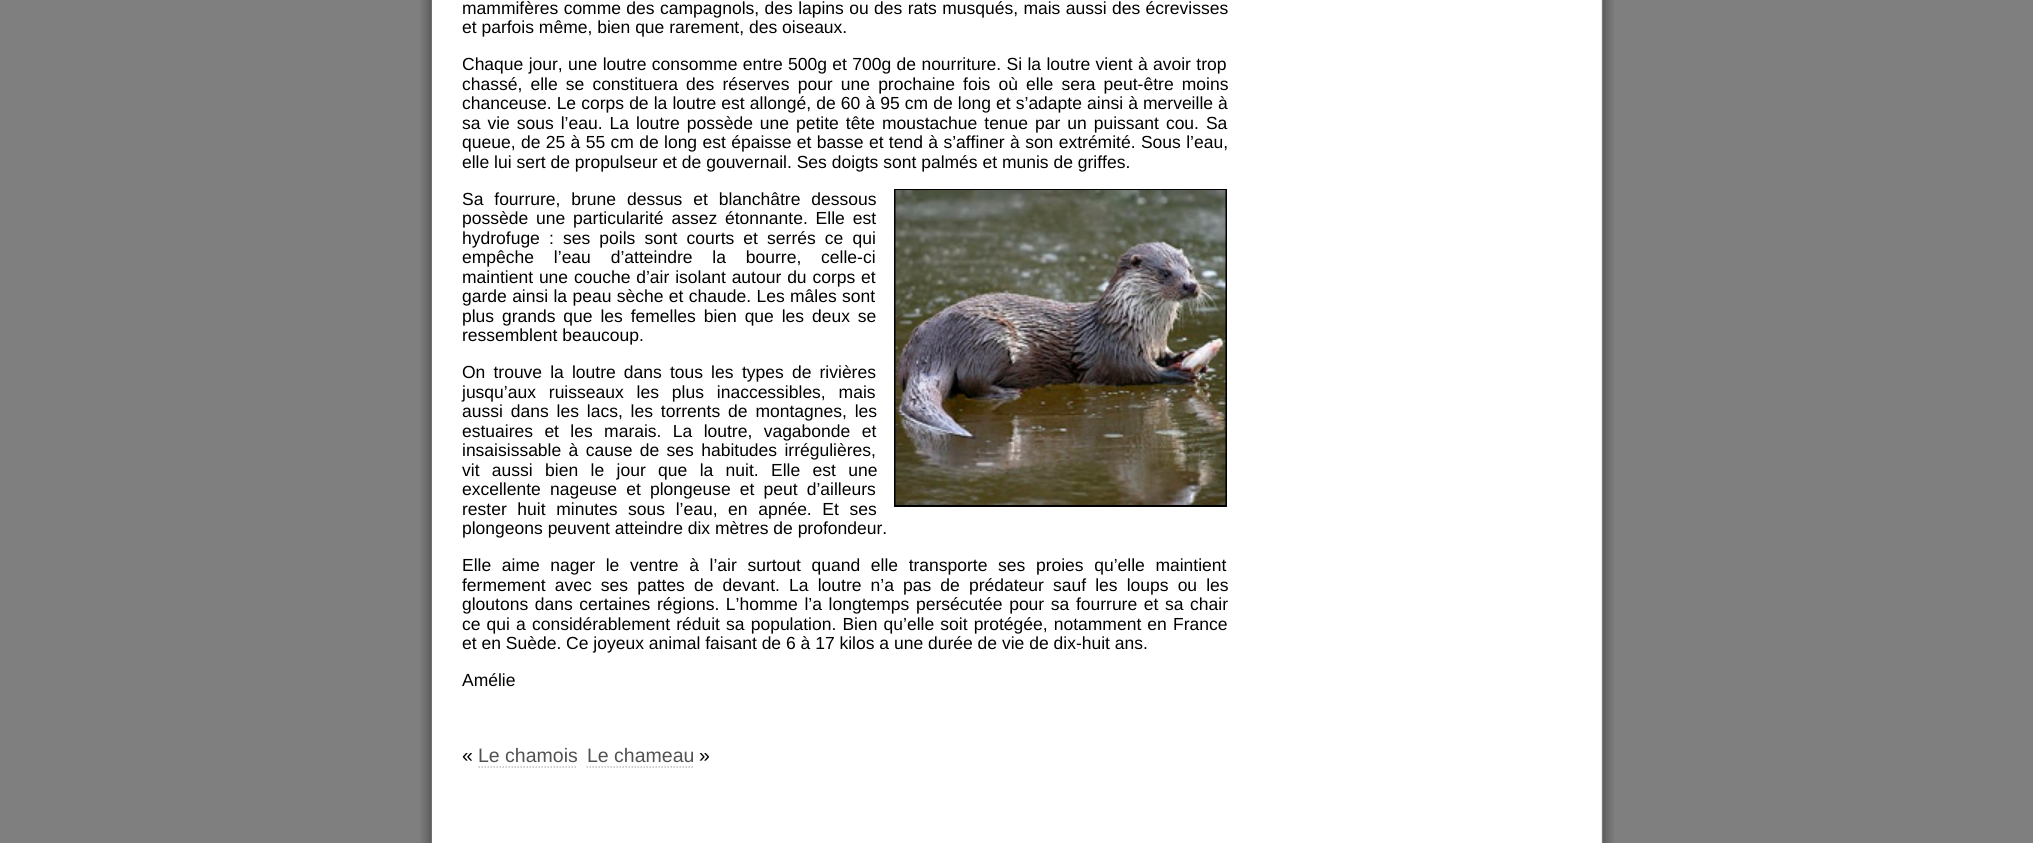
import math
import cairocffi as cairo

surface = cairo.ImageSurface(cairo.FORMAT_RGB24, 2033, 843)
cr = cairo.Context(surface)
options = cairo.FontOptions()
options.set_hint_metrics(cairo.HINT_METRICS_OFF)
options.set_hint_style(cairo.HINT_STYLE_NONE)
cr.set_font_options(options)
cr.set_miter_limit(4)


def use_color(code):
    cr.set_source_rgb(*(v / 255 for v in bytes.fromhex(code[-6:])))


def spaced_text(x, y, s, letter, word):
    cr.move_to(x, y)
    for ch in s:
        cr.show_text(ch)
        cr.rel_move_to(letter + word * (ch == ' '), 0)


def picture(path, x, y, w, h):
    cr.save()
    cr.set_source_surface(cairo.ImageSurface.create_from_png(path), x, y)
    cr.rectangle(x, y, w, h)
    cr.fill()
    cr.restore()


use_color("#7f7f7f")
cr.paint()
picture("img1.png", 420, 0, 1194, 843)
use_color("#ffffff")
cr.rectangle(432, 0, 1, 843)
cr.fill()
cr.select_font_face("Liberation Sans")
cr.set_font_size(17.5)
use_color("#000000")
spaced_text(462, 14, "mammifères comme des campagnols, des lapins ou des rats musqués, mais aussi des écrevisses", 0, 0.5)
cr.move_to(462, 33)
cr.show_text("et parfois même, bien que rarement, des oiseaux.")
spaced_text(462, 70, "Chaque jour, une loutre consomme entre 500g et 700g de nourriture. Si la loutre vient à avoir trop", 0, 0.5)
spaced_text(462, 90, "chassé, elle se constituera des réserves pour une prochaine fois où elle sera peut-être moins", 0, 3.25)
spaced_text(462, 109, "chanceuse. Le corps de la loutre est allongé, de 60 à 95 cm de long et s’adapte ainsi à merveille à", 0, 0.25)
spaced_text(462, 129, "sa vie sous l’eau. La loutre possède une petite tête moustachue tenue par un puissant cou. Sa", 0, 2.1)
spaced_text(462, 148, "queue, de 25 à 55 cm de long est épaisse et basse et tend à s’affiner à son extrémité. Sous l’eau,", 0, 0.5)
cr.move_to(462, 168)
cr.show_text("elle lui sert de propulseur et de gouvernail. Ses doigts sont palmés et munis de griffes.")
spaced_text(462, 205, "Sa fourrure, brune dessus et blanchâtre dessous", 0, 6)
spaced_text(462, 224, "possède une particularité assez étonnante. Elle est", 0, 3)
spaced_text(462, 244, "hydrofuge : ses poils sont courts et serrés ce qui", 0, 4.25)
spaced_text(462, 263, "empêche l’eau d’atteindre la bourre, celle-ci", 0, 15)
spaced_text(462, 283, "maintient une couche d’air isolant autour du corps et", 0, 1)
spaced_text(462, 302, "garde ainsi la peau sèche et chaude. Les mâles sont", 0, 0.5)
spaced_text(462, 322, "plus grands que les femelles bien que les deux se", 0, 3)
cr.move_to(462, 341)
cr.show_text("ressemblent beaucoup.")
cr.rectangle(895, 190, 331, 316)
cr.stroke()
picture("img2.png", 895, 190, 331, 315)
spaced_text(462, 378, "On trouve la loutre dans tous les", 0, 3.25)
spaced_text(742, 378, "types de rivières", 0, 3.25)
spaced_text(462, 398, "jusqu’aux ruisseaux les plus inaccessibles, mais", 0, 8)
spaced_text(462, 417, "aussi dans les lacs, les torrents de montagnes, les", 0, 3)
spaced_text(462, 437, "estuaires et les marais. La loutre, vagabonde et", 0, 6.5)
spaced_text(462, 456, "insaisissable à cause de ses habitudes irrégulières,", 0, 2.5)
spaced_text(462, 476, "vit aussi bien le jour que la nuit. Elle est une", 0, 7.5)
spaced_text(462, 495, "excellente nageuse et plongeuse et peut d’ailleurs", 0, 4.25)
spaced_text(462, 515, "rester huit minutes sous l’eau, en apnée. Et ses", 0, 5.75)
cr.move_to(462, 534)
cr.show_text("plongeons peuvent atteindre dix mètres de profondeur.")
spaced_text(462, 571, "Elle aime nager le ventre à l’air surtout quand elle transporte ses proies qu’elle maintient", 0, 5.75)
spaced_text(462, 591, "fermement avec ses pattes de devant. La loutre n’a pas de prédateur sauf les loups ou les", 0, 4.25)
spaced_text(462, 610, "gloutons dans certaines régions. L’homme l’a longtemps persécutée pour sa fourrure et sa chair", 0, 1.75)
spaced_text(462, 630, "ce qui a considérablement réduit sa population. Bien qu’elle soit protégée, notamment en France", 0, 1.25)
cr.move_to(462, 649)
cr.show_text("et en Suède. Ce joyeux animal faisant de 6 à 17 kilos a une durée de vie de dix-huit ans.")
cr.move_to(462, 686)
cr.show_text("Amélie")
cr.set_font_size(19.5)
cr.move_to(462, 762)
cr.show_text("«")
use_color("#515151")
cr.move_to(478, 762)
cr.show_text("Le chamois")
cr.new_path()
cr.move_to(478.5, 767)
cr.line_to(577.5, 767)
use_color("#c0c0c0")
cr.set_line_width(1.5)
cr.set_dash([1.5, 1.5])
cr.stroke()
use_color("#515151")
cr.move_to(587, 762)
cr.show_text("Le chameau")
cr.new_path()
cr.move_to(586.5, 767)
cr.line_to(693, 767)
use_color("#c0c0c0")
cr.stroke()
use_color("#000000")
cr.move_to(699, 762)
cr.show_text("»")
surface.write_to_png("result.png")
